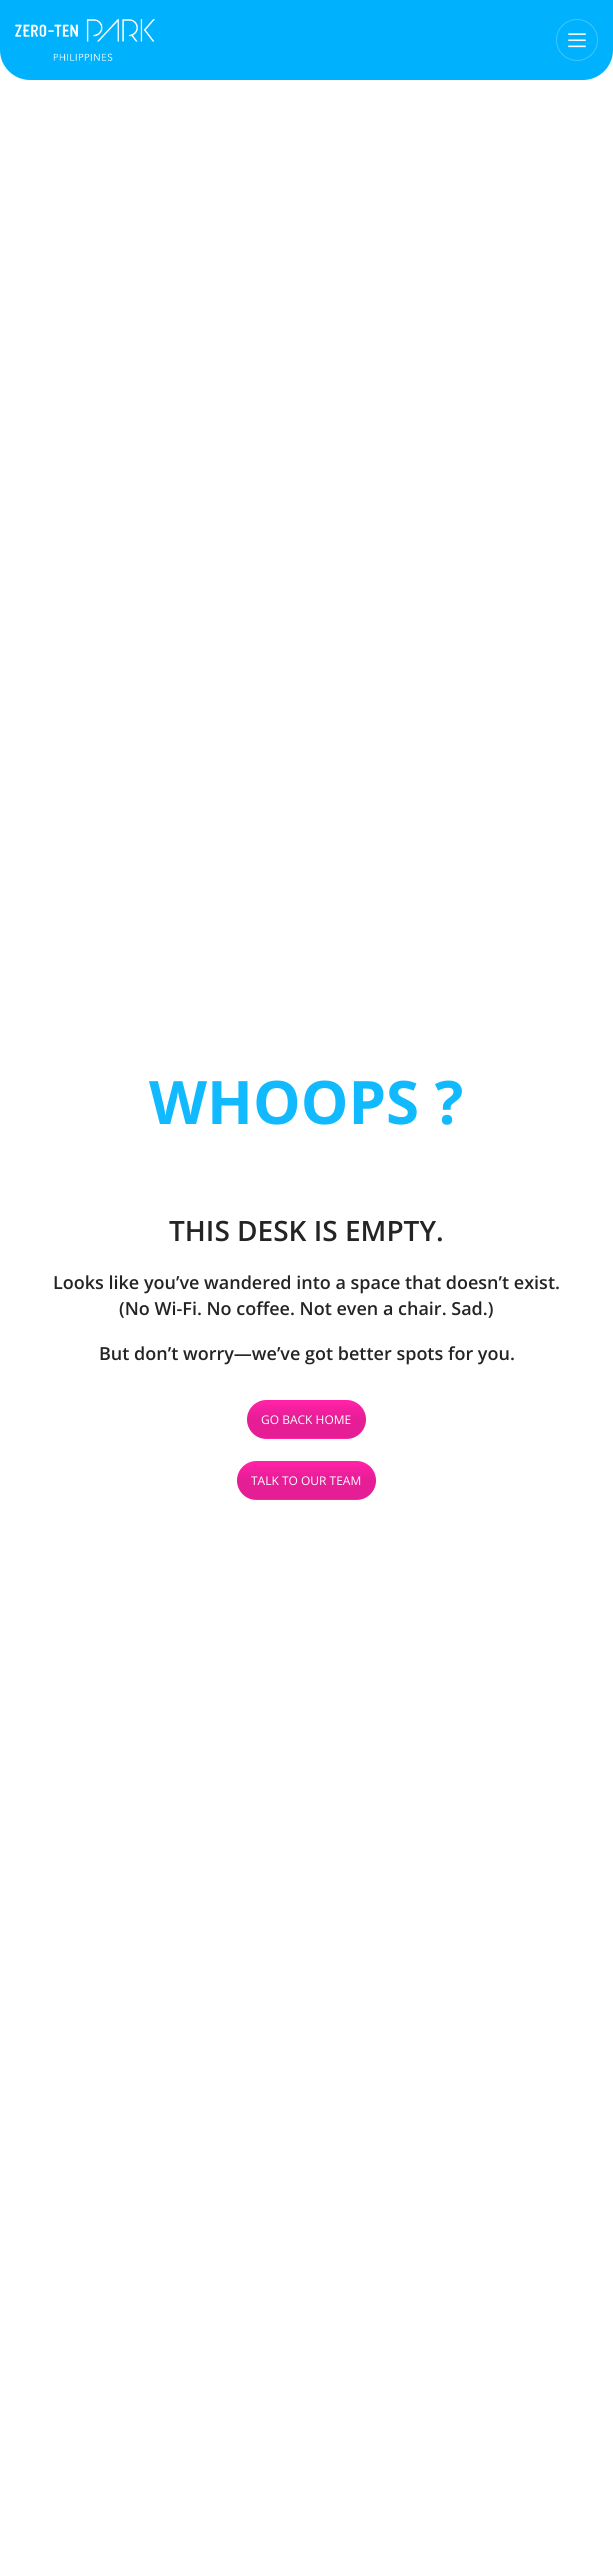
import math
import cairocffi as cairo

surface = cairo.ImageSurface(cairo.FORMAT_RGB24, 613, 2565)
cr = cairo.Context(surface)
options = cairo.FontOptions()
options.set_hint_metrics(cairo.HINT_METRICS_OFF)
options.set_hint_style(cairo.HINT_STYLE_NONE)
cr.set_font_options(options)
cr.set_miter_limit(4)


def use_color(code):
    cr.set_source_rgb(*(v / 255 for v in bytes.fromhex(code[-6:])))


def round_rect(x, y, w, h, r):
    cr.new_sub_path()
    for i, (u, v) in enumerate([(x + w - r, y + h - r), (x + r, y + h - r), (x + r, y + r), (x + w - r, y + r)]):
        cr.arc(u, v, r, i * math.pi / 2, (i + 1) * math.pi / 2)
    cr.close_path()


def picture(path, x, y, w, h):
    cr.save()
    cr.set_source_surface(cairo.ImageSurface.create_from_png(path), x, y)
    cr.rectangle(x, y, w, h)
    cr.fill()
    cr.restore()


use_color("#ffffff")
cr.paint()
use_color("#00b2fd")
cr.new_path()
cr.move_to(0, 0)
cr.line_to(613, 0)
cr.line_to(613, 50)
cr.curve_to(613, 66.5, 599.5, 80, 583, 80)
cr.line_to(30, 80)
cr.curve_to(13.5, 80, 0, 66.5, 0, 50)
cr.close_path()
cr.fill()
picture("img1.png", 15, 19, 140, 42)
cr.arc(577, 40, 20.5, 0, 2 * math.pi)
use_color("#40c5fe")
cr.set_line_width(1)
cr.stroke()
picture("img2.png", 568, 33, 18, 15)
cr.select_font_face("Open Sans", cairo.FONT_SLANT_NORMAL, cairo.FONT_WEIGHT_BOLD)
cr.set_font_size(60)
use_color("#11bafe")
cr.move_to(149, 1124)
cr.show_text("WHOOPS ?")
cr.select_font_face("Open Sans SemiBold")
cr.set_font_size(28)
use_color("#242424")
cr.move_to(169, 1241)
cr.show_text("THIS DESK IS EMPTY.")
cr.set_font_size(18)
cr.move_to(53, 1289)
cr.show_text("Looks like you’ve wandered into a space that doesn’t exist.")
cr.move_to(119, 1315)
cr.show_text("(No Wi-Fi. No coffee. Not even a chair. Sad.)")
cr.move_to(99, 1360)
cr.show_text("But don’t worry—we’ve got better spots for you.")
use_color("#ff21a6")
round_rect(247, 1400, 119, 39, 19.5)
cr.fill()
cr.save()
round_rect(247, 1400, 119, 39, 19.5)
cr.clip()
gradient = cairo.LinearGradient(365, 1401, 365, 1438)
gradient.add_color_stop_rgba(0, 0, 0, 0, 0)
gradient.add_color_stop_rgba(0.5, 0, 0, 0, 0.1)
gradient.add_color_stop_rgba(1, 0, 0, 0, 0.1)
cr.set_source(gradient)
cr.rectangle(247, 1405, 119, 33)
cr.fill()
cr.restore()
cr.select_font_face("Open Sans")
cr.set_font_size(12)
use_color("#ffffff")
cr.move_to(261, 1424)
cr.show_text("GO BACK HOME")
use_color("#ff21a6")
round_rect(237, 1461, 139, 39, 19.5)
cr.fill()
cr.save()
round_rect(237, 1461, 139, 39, 19.5)
cr.clip()
gradient = cairo.LinearGradient(375, 1462, 375, 1499)
gradient.add_color_stop_rgba(0, 0, 0, 0, 0)
gradient.add_color_stop_rgba(0.5, 0, 0, 0, 0.1)
gradient.add_color_stop_rgba(1, 0, 0, 0, 0.1)
cr.set_source(gradient)
cr.rectangle(237, 1466, 139, 33)
cr.fill()
cr.restore()
use_color("#ffffff")
cr.move_to(251, 1485)
cr.show_text("TALK TO OUR TEAM")
surface.write_to_png("result.png")
